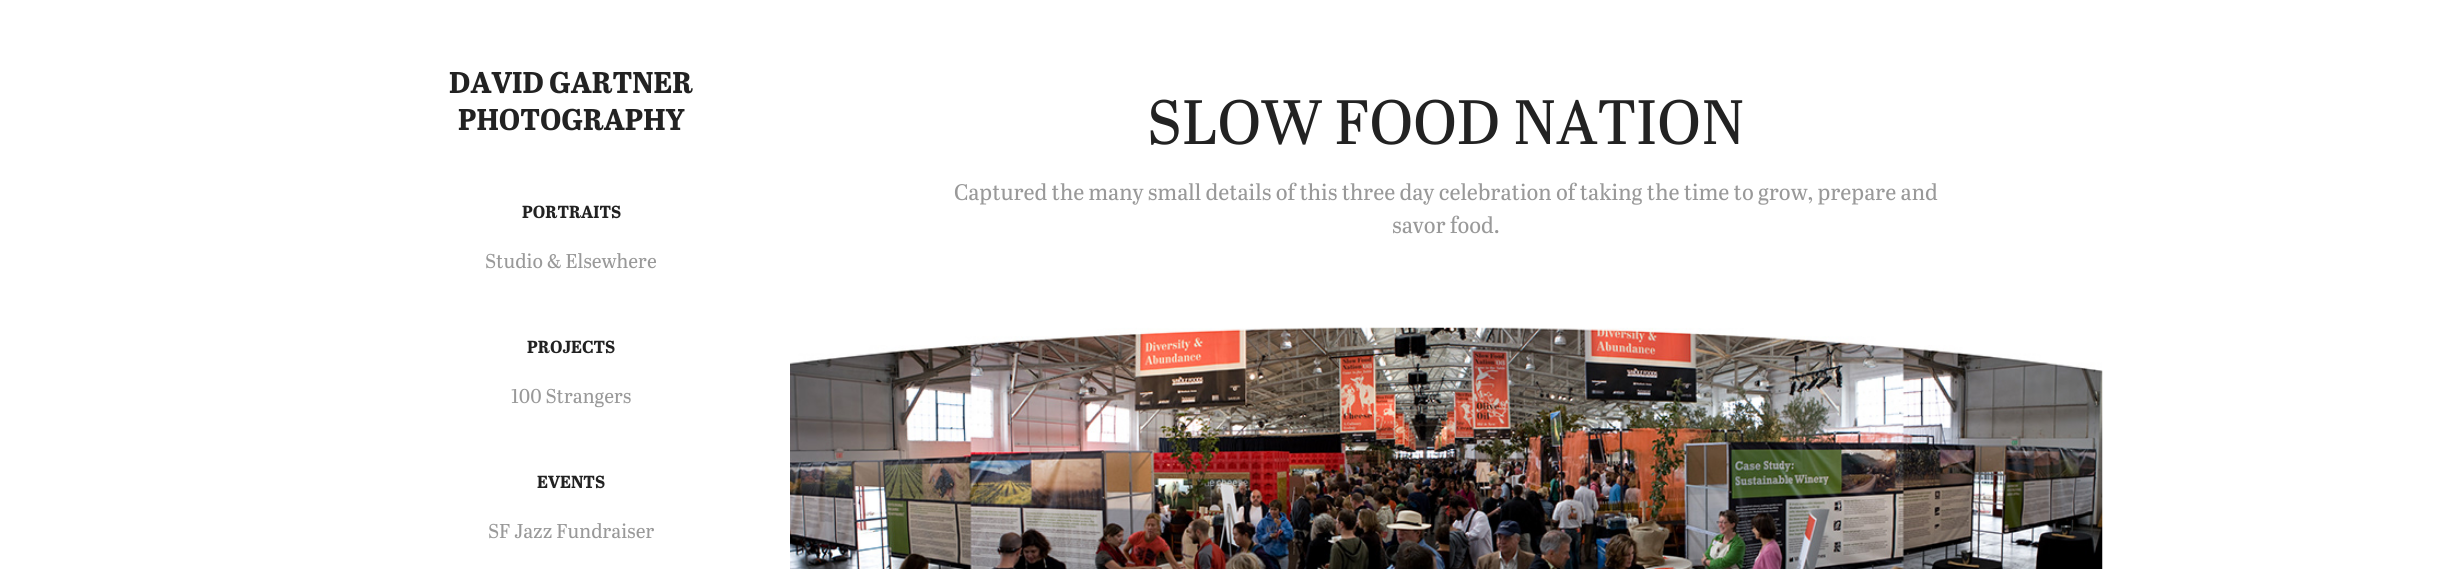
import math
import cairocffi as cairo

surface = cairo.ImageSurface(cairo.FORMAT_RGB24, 2454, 569)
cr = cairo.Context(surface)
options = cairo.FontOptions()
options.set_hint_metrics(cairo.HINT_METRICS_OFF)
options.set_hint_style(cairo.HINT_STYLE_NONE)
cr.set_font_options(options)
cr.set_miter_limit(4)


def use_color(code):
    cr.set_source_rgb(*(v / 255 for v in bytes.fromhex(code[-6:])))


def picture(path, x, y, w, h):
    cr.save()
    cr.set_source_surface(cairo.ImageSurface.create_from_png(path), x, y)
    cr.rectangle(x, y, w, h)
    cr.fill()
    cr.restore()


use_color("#ffffff")
cr.paint()
cr.select_font_face("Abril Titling", cairo.FONT_SLANT_NORMAL, cairo.FONT_WEIGHT_BOLD)
cr.set_font_size(30)
use_color("#222222")
cr.move_to(449, 93)
cr.show_text("DAVID GARTNER")
cr.move_to(458, 130)
cr.show_text("PHOTOGRAPHY")
cr.set_font_size(17.5)
cr.move_to(522, 218)
cr.show_text("PORTRAITS")
cr.select_font_face("Abril Titling")
cr.set_font_size(20)
use_color("#999999")
cr.move_to(485, 268)
cr.show_text("Studio & Elsewhere")
cr.select_font_face("Abril Titling", cairo.FONT_SLANT_NORMAL, cairo.FONT_WEIGHT_BOLD)
cr.set_font_size(17.5)
use_color("#222222")
cr.move_to(527, 353)
cr.show_text("PROJECTS")
cr.select_font_face("Abril Titling")
cr.set_font_size(20)
use_color("#999999")
cr.move_to(511, 403)
cr.show_text("100 Strangers")
cr.select_font_face("Abril Titling", cairo.FONT_SLANT_NORMAL, cairo.FONT_WEIGHT_BOLD)
cr.set_font_size(17.5)
use_color("#222222")
cr.move_to(537, 488)
cr.show_text("EVENTS")
cr.select_font_face("Abril Titling")
cr.set_font_size(20)
use_color("#999999")
cr.move_to(488, 538)
cr.show_text("SF Jazz Fundraiser")
cr.set_font_size(62.5)
use_color("#222222")
cr.move_to(1147, 144)
cr.show_text("SLOW FOOD NATION")
cr.set_font_size(22.5)
use_color("#999999")
cr.move_to(954, 200)
cr.show_text("Captured the many small details of this three day celebration of taking the time to grow, prepare and")
cr.move_to(1392, 233)
cr.show_text("savor food.")
picture("img1.png", 790, 327, 1313, 242)
surface.write_to_png("result.png")
